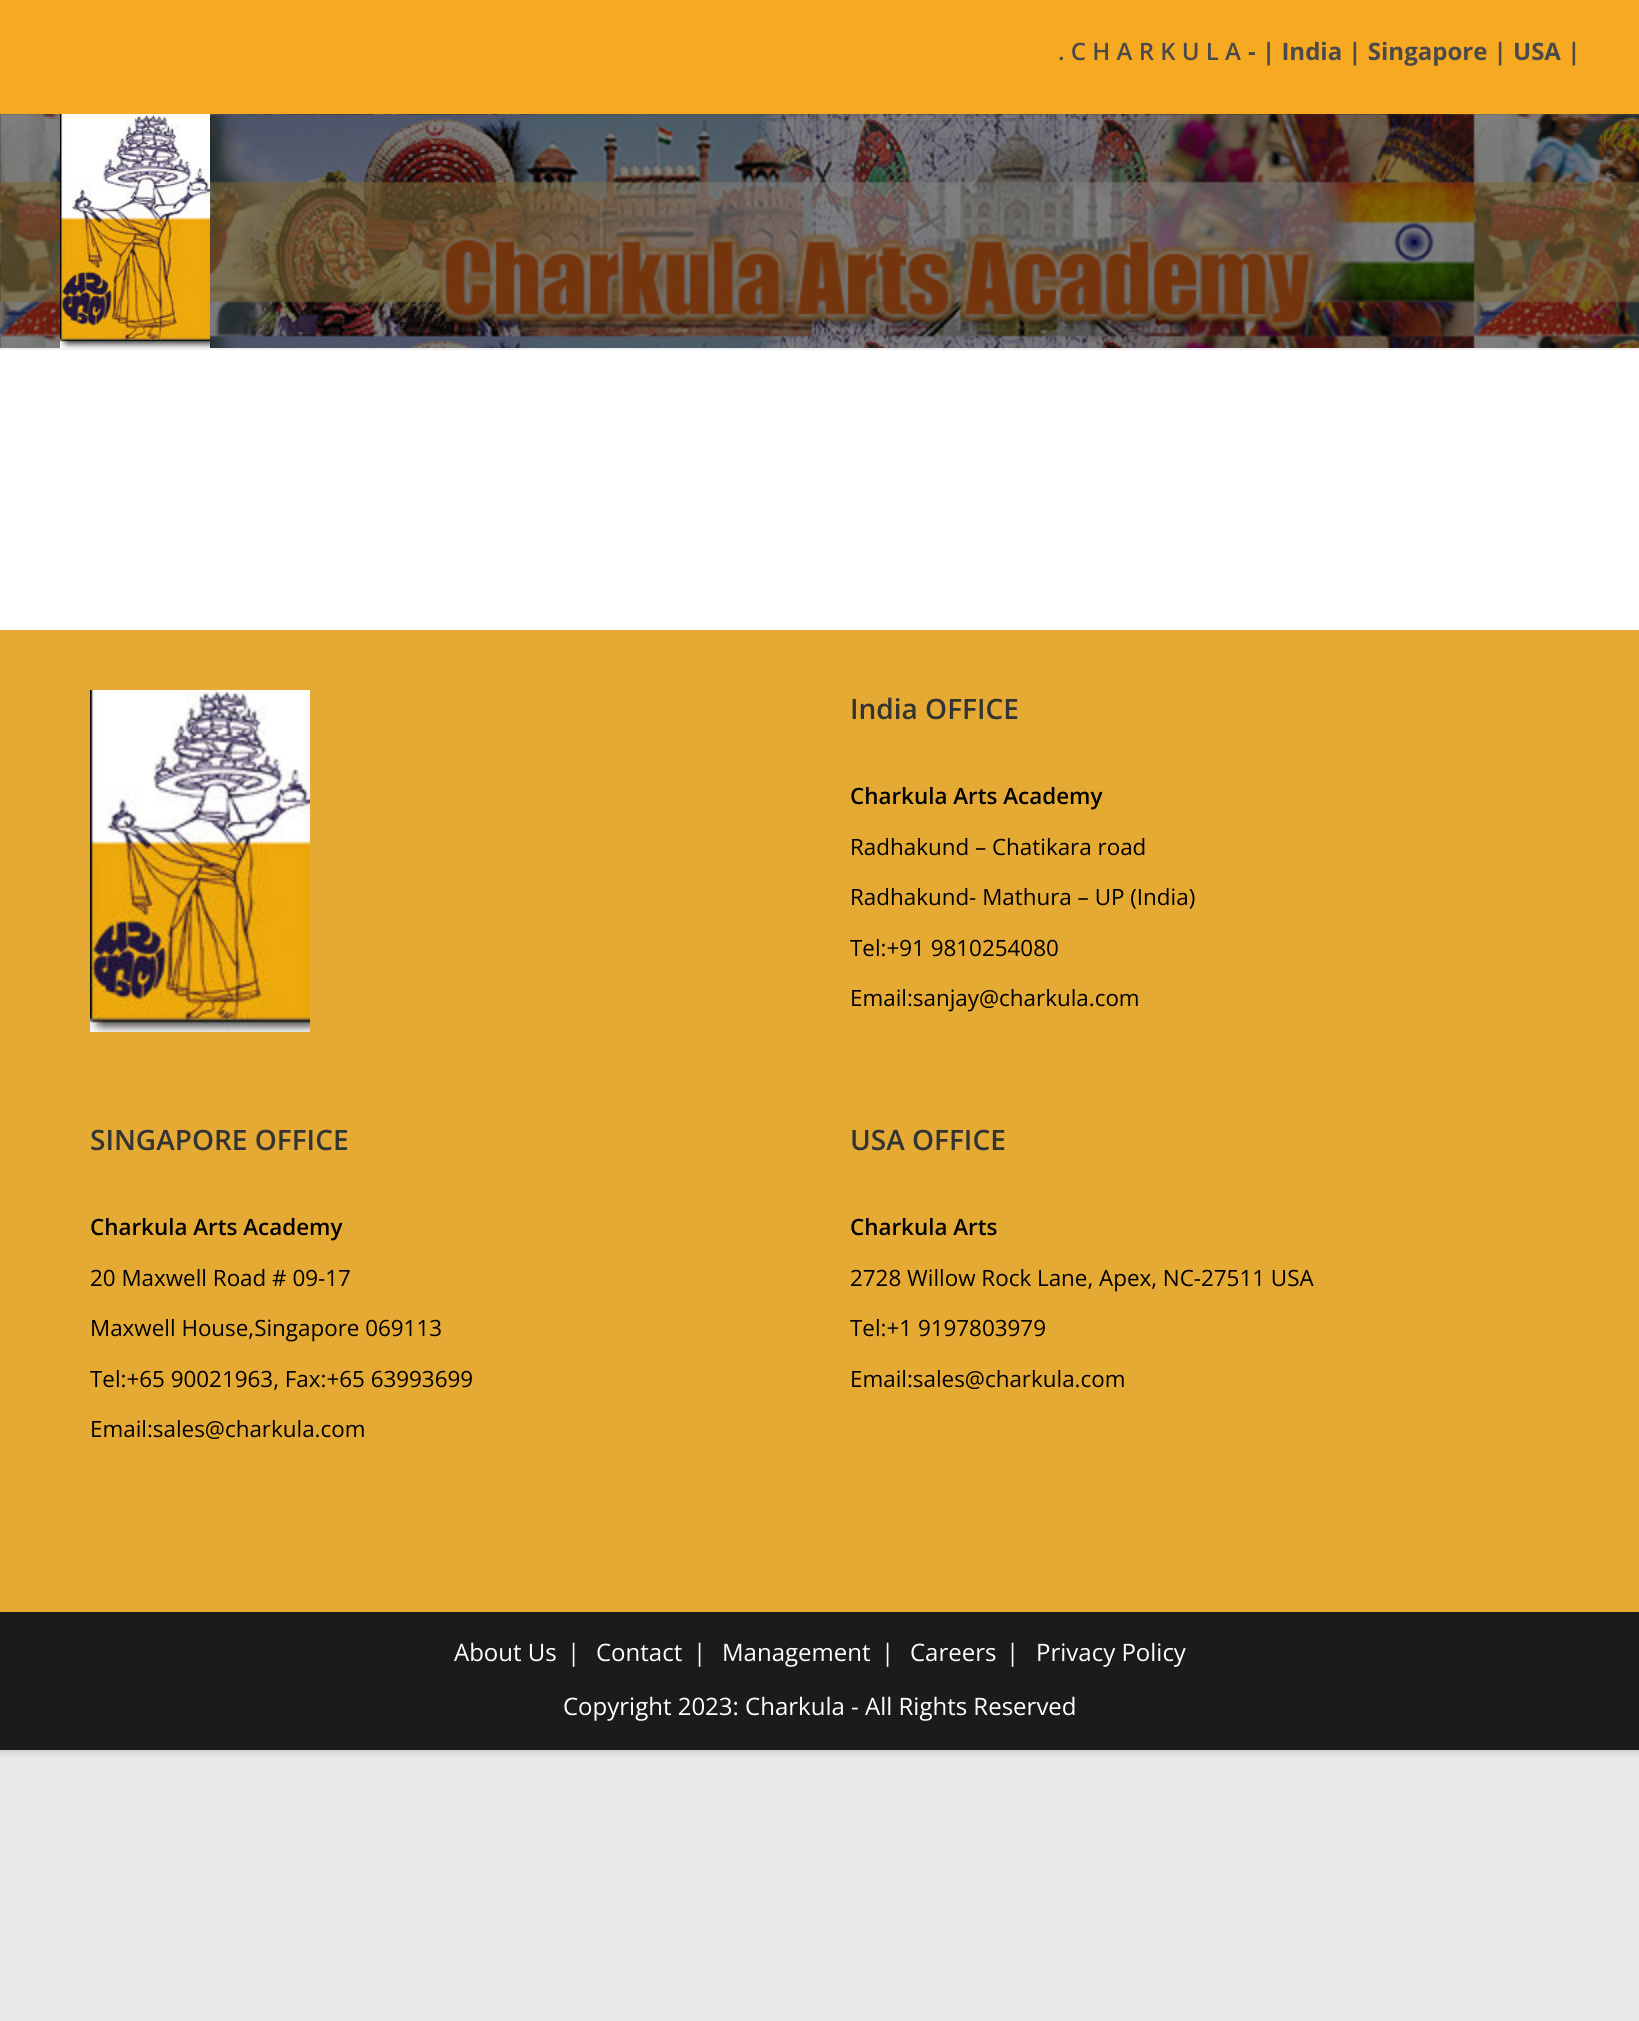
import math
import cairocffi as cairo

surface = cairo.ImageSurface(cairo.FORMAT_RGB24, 1639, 2021)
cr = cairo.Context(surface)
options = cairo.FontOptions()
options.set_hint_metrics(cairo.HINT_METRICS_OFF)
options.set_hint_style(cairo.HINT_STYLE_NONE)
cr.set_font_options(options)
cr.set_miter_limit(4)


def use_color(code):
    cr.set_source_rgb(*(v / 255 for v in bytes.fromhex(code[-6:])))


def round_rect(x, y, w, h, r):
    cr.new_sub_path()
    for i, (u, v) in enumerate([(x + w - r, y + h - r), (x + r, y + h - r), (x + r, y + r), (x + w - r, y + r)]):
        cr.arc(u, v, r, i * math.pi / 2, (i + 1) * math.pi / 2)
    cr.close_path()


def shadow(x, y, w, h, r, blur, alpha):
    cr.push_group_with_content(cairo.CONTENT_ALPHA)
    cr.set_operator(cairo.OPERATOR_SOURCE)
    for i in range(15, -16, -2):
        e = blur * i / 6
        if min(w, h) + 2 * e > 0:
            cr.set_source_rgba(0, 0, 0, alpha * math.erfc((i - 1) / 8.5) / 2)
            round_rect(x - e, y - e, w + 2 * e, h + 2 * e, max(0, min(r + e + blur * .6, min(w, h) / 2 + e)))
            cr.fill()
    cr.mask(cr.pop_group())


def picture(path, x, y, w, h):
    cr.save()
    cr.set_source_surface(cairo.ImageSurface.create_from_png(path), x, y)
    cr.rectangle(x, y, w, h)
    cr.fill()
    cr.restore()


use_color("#e9e9e9")
cr.paint()
use_color("#000000")
shadow(0, 2, 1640, 1750, 0, 4, 0.15)
use_color("#ffffff")
cr.rectangle(0, 350, 1639, 280)
cr.fill()
use_color("#f7a922")
cr.rectangle(0, 0, 1639, 114)
cr.fill()
cr.select_font_face("Open Sans SemiBold")
cr.set_font_size(24)
use_color("#4a4a4a")
cr.move_to(1058, 60)
cr.show_text(". C H A R K U L A")
cr.select_font_face("Open Sans", cairo.FONT_SLANT_NORMAL, cairo.FONT_WEIGHT_BOLD)
cr.move_to(1248, 60)
cr.show_text("- | India | Singapore | USA |")
picture("img1.png", 0, 114, 1639, 234)
use_color("#f1f1f1")
cr.rectangle(0, 348, 1639, 2)
cr.fill()
picture("img2.png", 60, 114, 150, 234)
use_color("#e5aa34")
cr.rectangle(0, 630, 1639, 982)
cr.fill()
picture("img3.png", 90, 690, 220, 342)
cr.select_font_face("Open Sans SemiBold")
cr.set_font_size(28)
use_color("#333333")
cr.move_to(850, 719)
cr.show_text("India OFFICE")
cr.set_font_size(22.4)
use_color("#000000")
cr.move_to(850, 804)
cr.show_text("Charkula Arts Academy")
cr.select_font_face("Open Sans")
cr.move_to(850, 855)
cr.show_text("Radhakund – Chatikara road")
cr.move_to(850, 905)
cr.show_text("Radhakund- Mathura – UP (India)")
cr.move_to(850, 956)
cr.show_text("Tel:+91 9810254080")
cr.move_to(850, 1006)
cr.show_text("Email:sanjay@charkula.com")
cr.select_font_face("Open Sans SemiBold")
cr.set_font_size(28)
use_color("#333333")
cr.move_to(90, 1150)
cr.show_text("SINGAPORE OFFICE")
cr.set_font_size(22.4)
use_color("#000000")
cr.move_to(90, 1235)
cr.show_text("Charkula Arts Academy")
cr.select_font_face("Open Sans")
cr.move_to(90, 1286)
cr.show_text("20 Maxwell Road # 09-17")
cr.move_to(90, 1336)
cr.show_text("Maxwell House,Singapore 069113")
cr.move_to(90, 1387)
cr.show_text("Tel:+65 90021963, Fax:+65 63993699")
cr.move_to(90, 1437)
cr.show_text("Email:sales@charkula.com")
cr.select_font_face("Open Sans SemiBold")
cr.set_font_size(28)
use_color("#333333")
cr.move_to(850, 1150)
cr.show_text("USA OFFICE")
cr.set_font_size(22.4)
use_color("#000000")
cr.move_to(850, 1235)
cr.show_text("Charkula Arts")
cr.select_font_face("Open Sans")
cr.move_to(850, 1286)
cr.show_text("2728 Willow Rock Lane, Apex, NC-27511 USA")
cr.move_to(850, 1336)
cr.show_text("Tel:+1 9197803979")
cr.move_to(850, 1387)
cr.show_text("Email:sales@charkula.com")
use_color("#1b1b1b")
cr.rectangle(0, 1612, 1639, 138)
cr.fill()
cr.set_font_size(24)
use_color("#ffffff")
cr.move_to(454, 1661)
cr.show_text("About Us")
cr.move_to(567, 1661)
cr.show_text("|")
cr.move_to(596, 1661)
cr.show_text("Contact")
cr.move_to(693, 1661)
cr.show_text("|")
cr.move_to(722, 1661)
cr.show_text("Management")
cr.move_to(881, 1661)
cr.show_text("|")
cr.move_to(910, 1661)
cr.show_text("Careers")
cr.move_to(1006, 1661)
cr.show_text("|")
cr.move_to(1036, 1661)
cr.show_text("Privacy Policy")
cr.move_to(563, 1715)
cr.show_text("Copyright 2023: Charkula - All Rights Reserved")
surface.write_to_png("result.png")
